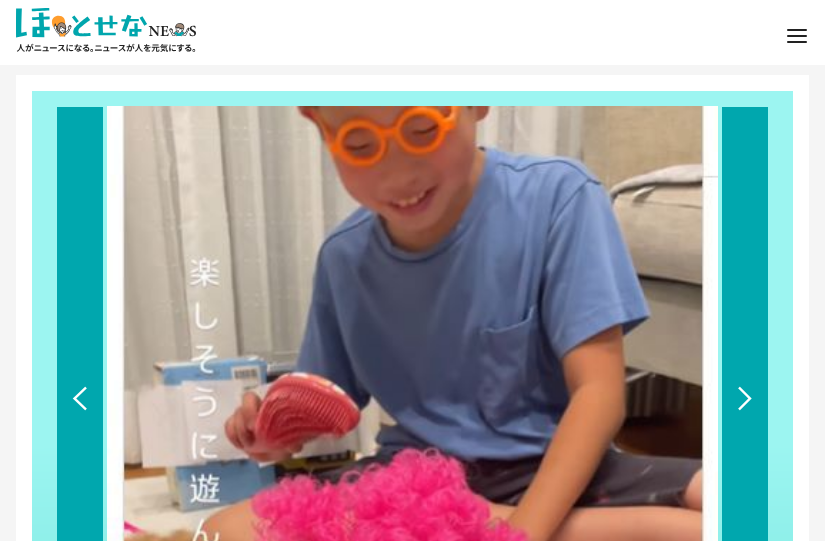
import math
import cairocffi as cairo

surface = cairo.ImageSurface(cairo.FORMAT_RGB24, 825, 541)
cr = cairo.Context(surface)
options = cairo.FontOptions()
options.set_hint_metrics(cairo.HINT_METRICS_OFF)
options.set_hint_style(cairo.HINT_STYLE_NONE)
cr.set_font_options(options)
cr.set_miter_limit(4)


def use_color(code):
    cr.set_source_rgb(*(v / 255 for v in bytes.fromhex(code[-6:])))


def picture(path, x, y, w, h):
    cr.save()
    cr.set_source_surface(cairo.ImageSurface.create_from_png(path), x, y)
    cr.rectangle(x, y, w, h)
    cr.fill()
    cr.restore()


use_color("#f5f5f5")
cr.paint()
use_color("#ffffff")
cr.rectangle(0, 0, 825, 65)
cr.fill()
picture("img1.png", 16, 8, 180, 44)
cr.new_path()
cr.move_to(788, 36)
cr.line_to(806, 36)
cr.move_to(788, 30)
cr.line_to(806, 30)
cr.move_to(788, 42)
cr.line_to(806, 42)
use_color("#222222")
cr.set_line_cap(cairo.LINE_CAP_ROUND)
cr.set_line_join(cairo.LINE_JOIN_ROUND)
cr.stroke()
use_color("#ffffff")
cr.rectangle(16, 75, 793, 466)
cr.fill()
gradient = cairo.LinearGradient(412, 91, 413, 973)
gradient.add_color_stop_rgba(0.4, 0.612, 0.961, 0.945, 1)
gradient.add_color_stop_rgba(1, 0.341, 0.843, 0.796, 1)
cr.set_source(gradient)
cr.rectangle(32, 91, 761, 450)
cr.fill()
use_color("#00a7ae")
cr.rectangle(57, 107, 46, 434)
cr.fill()
cr.new_path()
cr.move_to(86, 387.5)
cr.line_to(74.5, 398.5)
cr.line_to(86, 409.5)
use_color("#ffffff")
cr.set_line_width(2.4)
cr.set_line_cap(cairo.LINE_CAP_BUTT)
cr.set_line_join(cairo.LINE_JOIN_MITER)
cr.stroke()
picture("img2.png", 107, 106, 611, 435)
use_color("#00a7ae")
cr.rectangle(722, 107, 46, 434)
cr.fill()
cr.new_path()
cr.move_to(739, 387.5)
cr.line_to(750, 398.5)
cr.line_to(739, 409.5)
use_color("#ffffff")
cr.stroke()
surface.write_to_png("result.png")
